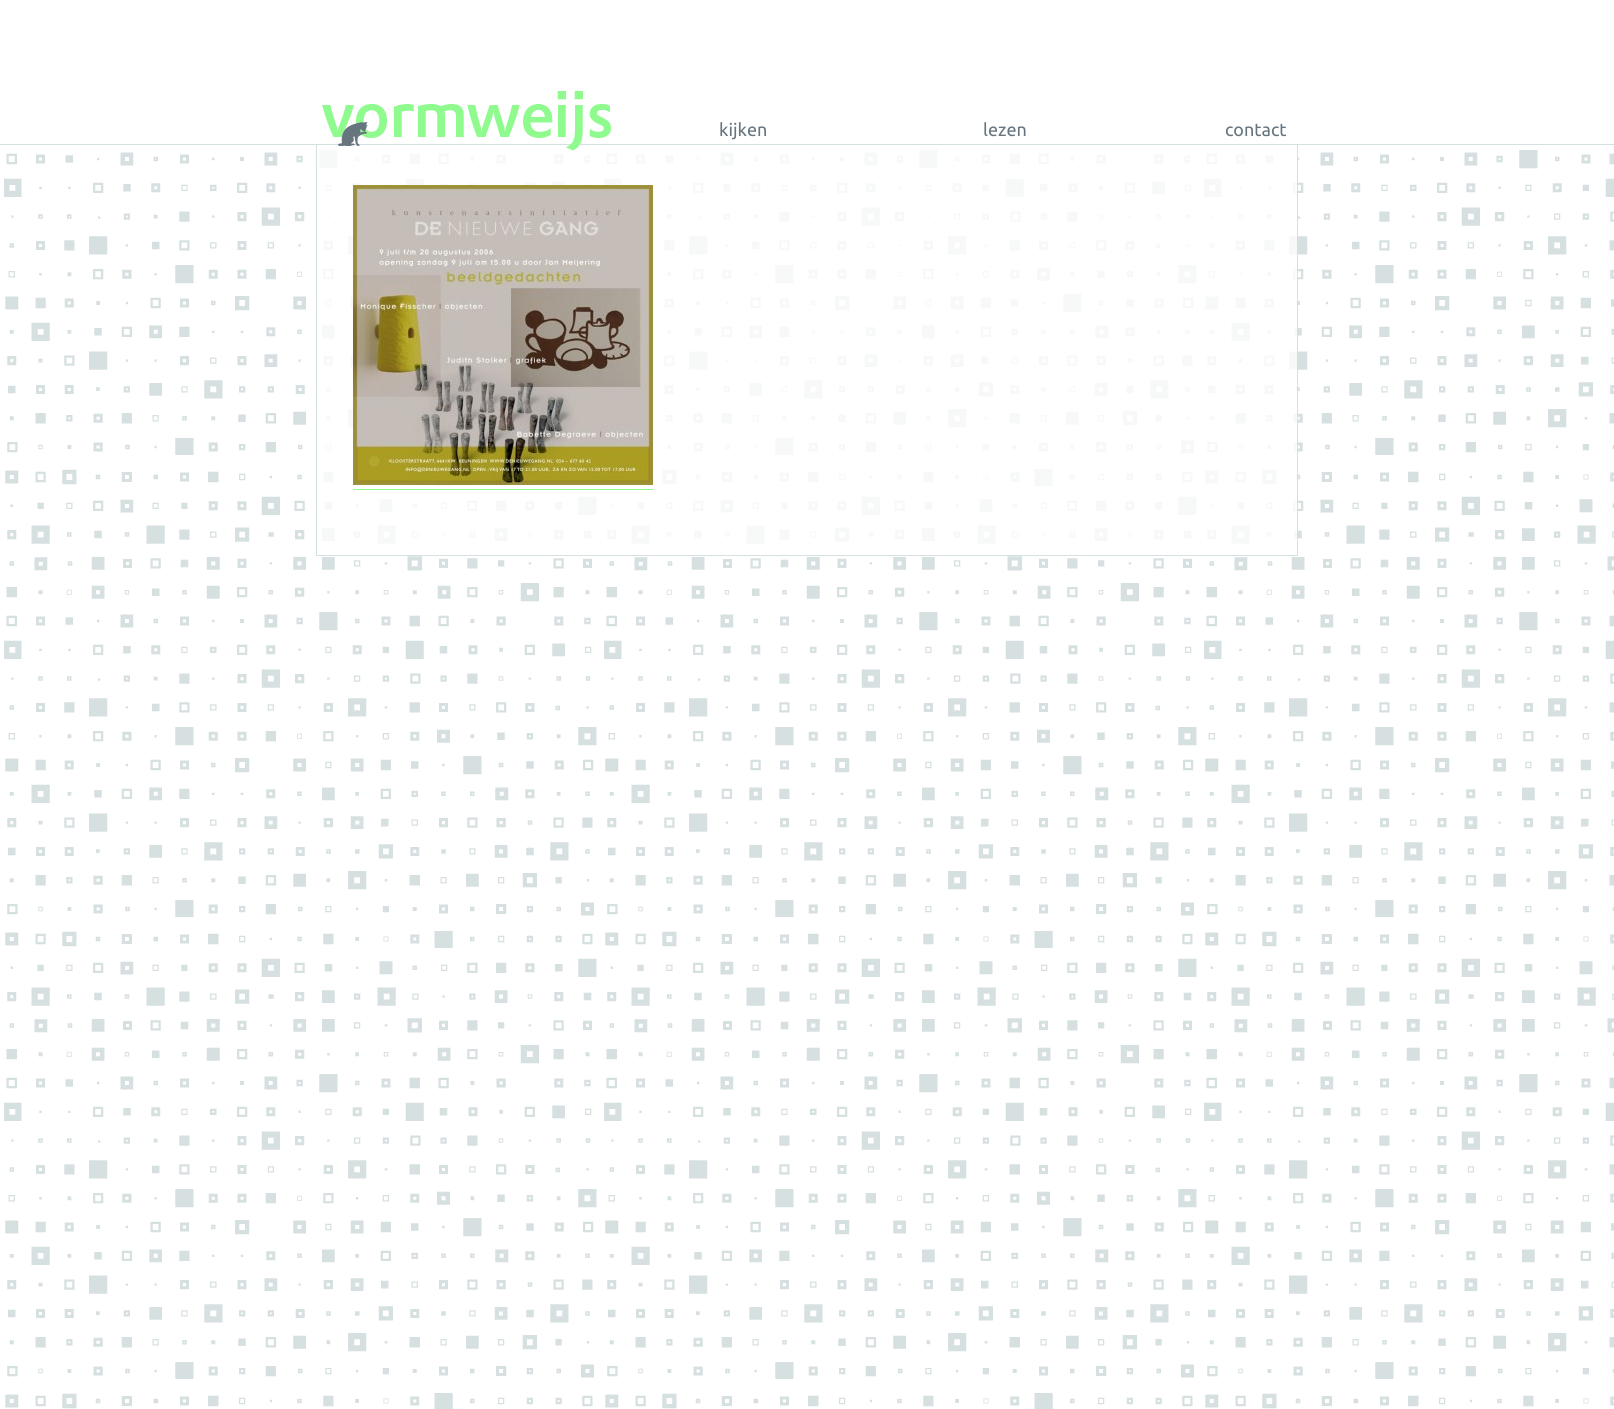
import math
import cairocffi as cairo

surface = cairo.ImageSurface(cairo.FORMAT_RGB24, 1614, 1409)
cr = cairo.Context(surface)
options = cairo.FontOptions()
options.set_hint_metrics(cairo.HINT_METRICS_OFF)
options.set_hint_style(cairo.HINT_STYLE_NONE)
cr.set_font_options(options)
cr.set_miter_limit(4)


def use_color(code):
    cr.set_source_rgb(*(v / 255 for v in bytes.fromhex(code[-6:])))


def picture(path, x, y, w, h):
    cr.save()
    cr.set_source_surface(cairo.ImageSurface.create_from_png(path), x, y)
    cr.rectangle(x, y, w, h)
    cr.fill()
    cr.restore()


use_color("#ffffff")
cr.paint()
picture("img1.png", 4, 150, 1610, 1259)
cr.set_source_rgba(1, 1, 1, 0.8)
cr.rectangle(319, 150, 978, 394)
cr.fill()
cr.rectangle(316.5, 144.5, 981, 411)
use_color("#d5e0e1")
cr.set_line_width(1)
cr.stroke()
cr.rectangle(0, 144, 1614, 1)
cr.fill()
picture("img2.png", 322, 91, 289, 60)
cr.select_font_face("Ubuntu")
cr.set_font_size(18)
use_color("#66757e")
cr.move_to(719, 136)
cr.show_text("kijken")
cr.move_to(983, 136)
cr.show_text("lezen")
cr.move_to(1225, 136)
cr.show_text("contact")
picture("img3.png", 353, 185, 300, 300)
use_color("#8ffb8e")
cr.rectangle(353, 489, 300, 1)
cr.fill()
surface.write_to_png("result.png")
